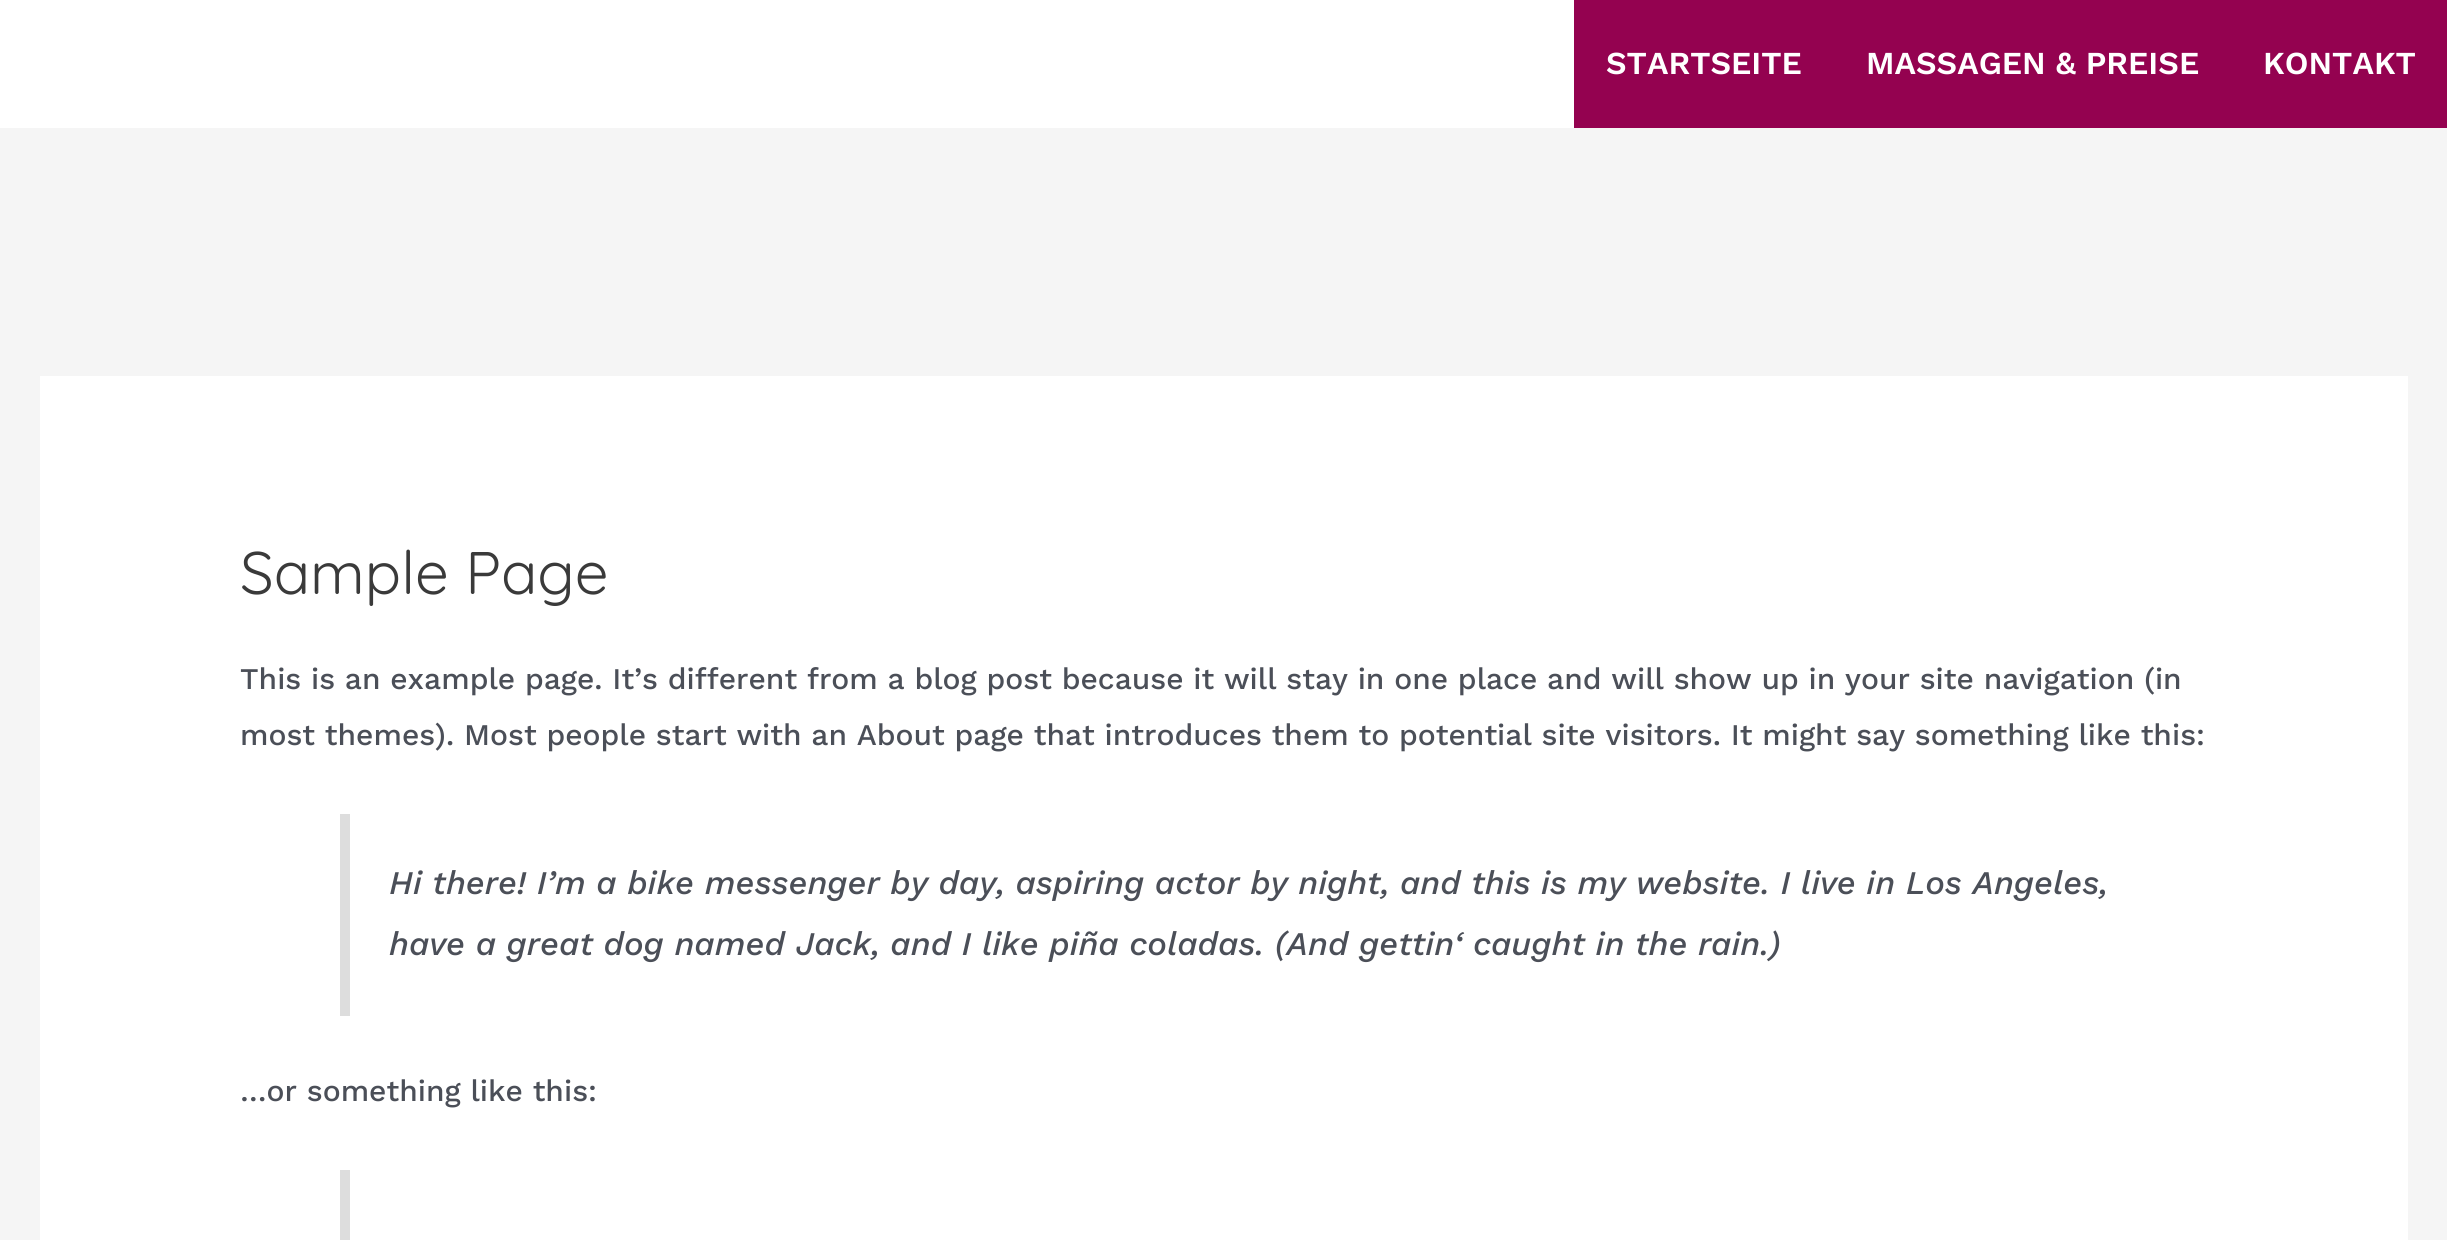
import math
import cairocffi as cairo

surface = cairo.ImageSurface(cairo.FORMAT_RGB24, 2447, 1240)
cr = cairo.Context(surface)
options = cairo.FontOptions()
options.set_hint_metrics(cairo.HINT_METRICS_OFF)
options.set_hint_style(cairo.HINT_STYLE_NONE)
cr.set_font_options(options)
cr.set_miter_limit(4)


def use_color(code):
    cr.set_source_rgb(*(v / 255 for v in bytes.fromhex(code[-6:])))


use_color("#f5f5f5")
cr.paint()
use_color("#ffffff")
cr.rectangle(0, 0, 1574, 128)
cr.fill()
use_color("#940250")
cr.rectangle(1574, 0, 873, 128)
cr.fill()
cr.select_font_face("Work Sans SemiBold")
cr.set_font_size(32)
use_color("#ffffff")
cr.move_to(1606, 74)
cr.show_text("STARTSEITE")
cr.move_to(1866, 74)
cr.show_text("MASSAGEN & PREISE")
cr.move_to(2263, 74)
cr.show_text("KONTAKT")
cr.rectangle(40, 376, 2368, 864)
cr.fill()
cr.select_font_face("Quicksand")
cr.set_font_size(60)
use_color("#3a3a3a")
cr.move_to(240, 594)
cr.show_text("Sample Page")
cr.select_font_face("Work Sans Medium")
cr.set_font_size(30)
use_color("#4b4f58")
cr.move_to(240, 689)
cr.show_text("This is an example page. It’s different from a blog post because it will stay in one place and will show up in your site navigation (in")
cr.move_to(240, 745)
cr.show_text("most themes). Most people start with an About page that introduces them to potential site visitors. It might say something like this:")
use_color("#dddddd")
cr.rectangle(340, 814, 10, 202)
cr.fill()
cr.select_font_face("Work Sans Medium", cairo.FONT_SLANT_ITALIC)
cr.set_font_size(33)
use_color("#4b4f58")
cr.move_to(389, 894)
cr.show_text("Hi there! I’m a bike messenger by day, aspiring actor by night, and this is my website. I live in Los Angeles,")
cr.move_to(389, 955)
cr.show_text("have a great dog named Jack, and I like piña coladas. (And gettin‘ caught in the rain.)")
cr.select_font_face("Work Sans Medium")
cr.set_font_size(30)
cr.move_to(240, 1101)
cr.show_text("…or something like this:")
use_color("#dddddd")
cr.rectangle(340, 1170, 10, 70)
cr.fill()
surface.write_to_png("result.png")
